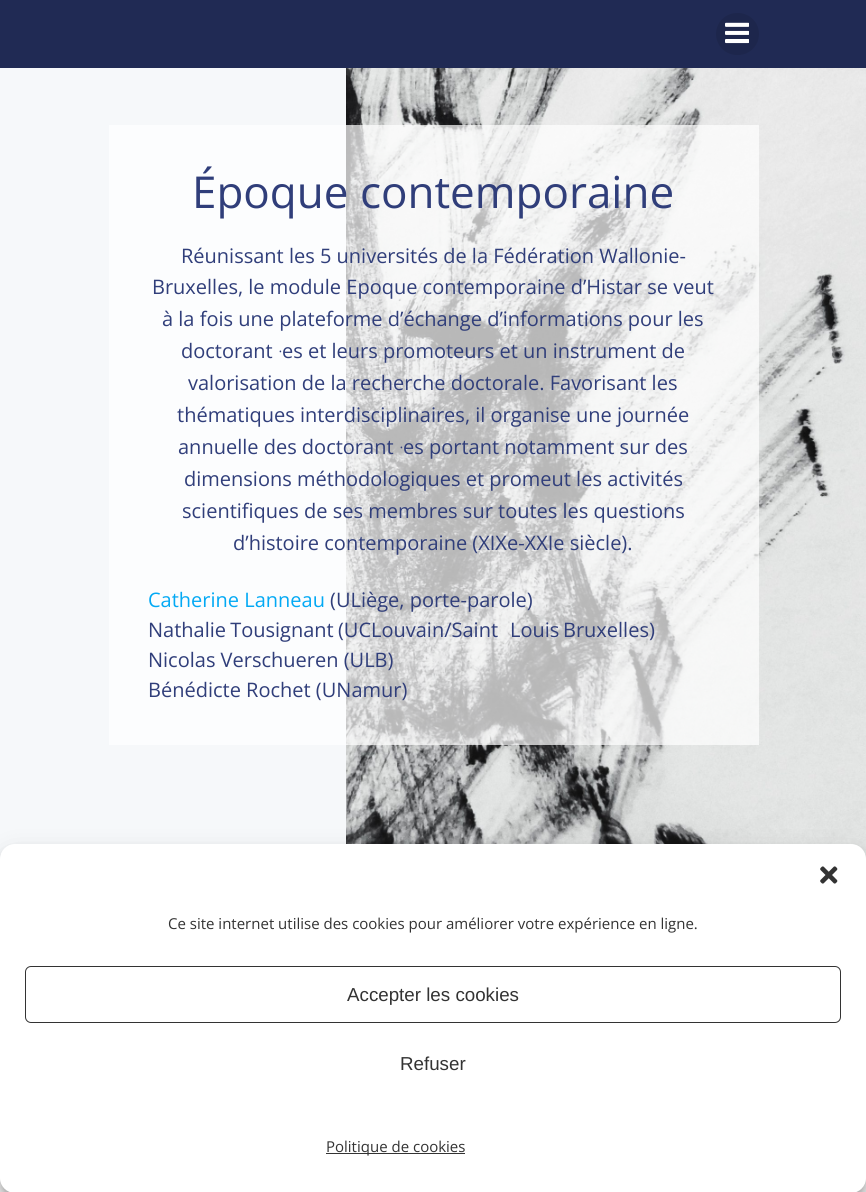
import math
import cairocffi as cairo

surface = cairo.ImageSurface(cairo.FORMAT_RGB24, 866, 1192)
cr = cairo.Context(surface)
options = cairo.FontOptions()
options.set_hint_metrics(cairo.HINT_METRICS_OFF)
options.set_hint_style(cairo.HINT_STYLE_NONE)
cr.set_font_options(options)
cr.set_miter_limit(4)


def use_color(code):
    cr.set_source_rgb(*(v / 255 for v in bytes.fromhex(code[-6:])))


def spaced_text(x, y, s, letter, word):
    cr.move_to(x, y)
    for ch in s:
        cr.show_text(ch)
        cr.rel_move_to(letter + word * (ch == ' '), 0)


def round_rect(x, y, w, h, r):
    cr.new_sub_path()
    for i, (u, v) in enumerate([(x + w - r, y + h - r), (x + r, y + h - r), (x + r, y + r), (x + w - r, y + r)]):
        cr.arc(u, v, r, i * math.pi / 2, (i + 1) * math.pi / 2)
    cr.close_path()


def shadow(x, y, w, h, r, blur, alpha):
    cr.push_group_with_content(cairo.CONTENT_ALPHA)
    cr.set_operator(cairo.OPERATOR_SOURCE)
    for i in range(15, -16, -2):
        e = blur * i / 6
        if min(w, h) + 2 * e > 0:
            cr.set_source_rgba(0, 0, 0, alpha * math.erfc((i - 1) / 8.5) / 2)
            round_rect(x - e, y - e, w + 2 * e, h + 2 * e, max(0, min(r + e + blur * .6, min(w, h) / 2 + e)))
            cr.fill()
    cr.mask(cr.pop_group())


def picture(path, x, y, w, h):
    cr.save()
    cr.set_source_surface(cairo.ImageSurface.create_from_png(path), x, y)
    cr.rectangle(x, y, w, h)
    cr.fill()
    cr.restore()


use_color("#ffffff")
cr.paint()
use_color("#202a54")
cr.rectangle(0, 0, 866, 68)
cr.fill()
use_color("#1d264c")
round_rect(716, 13, 43, 42, 21)
cr.fill()
picture("img1.png", 725, 22, 24, 22)
picture("img2.png", 346, 68, 520, 791)
use_color("#f6f8fa")
cr.rectangle(0, 68, 346, 791)
cr.fill()
cr.set_source_rgba(1, 1, 1, 0.7)
cr.rectangle(109, 125, 650, 620)
cr.fill()
cr.select_font_face("Open Sans")
cr.set_font_size(44)
use_color("#303e7a")
cr.move_to(192, 208)
cr.show_text("Époque contemporaine")
cr.set_font_size(20)
cr.move_to(181, 263)
cr.show_text("Réunissant les 5 universités de la Fédération Wallonie-")
cr.move_to(152, 294)
cr.show_text("Bruxelles, le module Epoque contemporaine d’Histar se veut")
cr.move_to(162, 326)
cr.show_text("à la fois une plateforme d’échange d’informations pour les")
cr.move_to(181, 358)
cr.show_text("doctorant")
cr.select_font_face("Open Sans Light")
cr.move_to(278, 358)
cr.show_text("·")
cr.select_font_face("Open Sans")
cr.move_to(282, 358)
cr.show_text("es et leurs promoteurs et un instrument de")
cr.move_to(188, 390)
cr.show_text("valorisation de la recherche doctorale. Favorisant les")
cr.move_to(177, 422)
cr.show_text("thématiques interdisciplinaires, il organise une journée")
cr.move_to(178, 454)
cr.show_text("annuelle des doctorant")
cr.select_font_face("Open Sans Light")
cr.move_to(399, 454)
cr.show_text("·")
cr.select_font_face("Open Sans")
cr.move_to(403, 454)
cr.show_text("es portant notamment sur des")
cr.move_to(184, 486)
cr.show_text("dimensions méthodologiques et promeut les activités")
cr.move_to(182, 518)
cr.show_text("scientifiques de ses membres sur toutes les questions")
cr.move_to(233, 550)
cr.show_text("d’histoire contemporaine (XIXe-XXIe siècle).")
use_color("#03a9f4")
cr.move_to(148, 607)
cr.show_text("Catherine Lanneau")
use_color("#303e7a")
cr.move_to(330, 607)
cr.show_text("(ULiège, porte-parole)")
spaced_text(148, 637, "Nathalie Tousignant (UCLouvain/Saint‑Louis", 0, -1)
cr.move_to(563, 637)
cr.show_text("Bruxelles)")
cr.move_to(148, 667)
cr.show_text("Nicolas Verschueren (ULB)")
cr.move_to(148, 697)
cr.show_text("Bénédicte Rochet (UNamur)")
use_color("#000000")
shadow(0, 851, 866, 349, 15, 4, 0.23)
shadow(0, 856, 866, 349, 15, 12.5, 0.19)
use_color("#ffffff")
round_rect(0, 844, 866, 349, 15)
cr.fill()
picture("img3.png", 820, 866, 18, 18)
cr.set_font_size(15)
use_color("#333333")
cr.move_to(168, 929)
cr.show_text("Ce site internet utilise des cookies pour améliorer votre expérience en ligne.")
round_rect(25.5, 966.5, 815, 56, 5.5)
cr.set_line_width(1)
cr.stroke()
cr.select_font_face("Liberation Sans")
cr.set_font_size(18.75)
cr.move_to(347, 1001)
cr.show_text("Accepter les cookies")
cr.move_to(400, 1070)
cr.show_text("Refuser")
cr.rectangle(326, 1153, 139, 1)
cr.fill()
cr.select_font_face("Open Sans")
cr.set_font_size(15)
cr.move_to(326, 1152)
cr.show_text("Politique de cookies")
surface.write_to_png("result.png")
